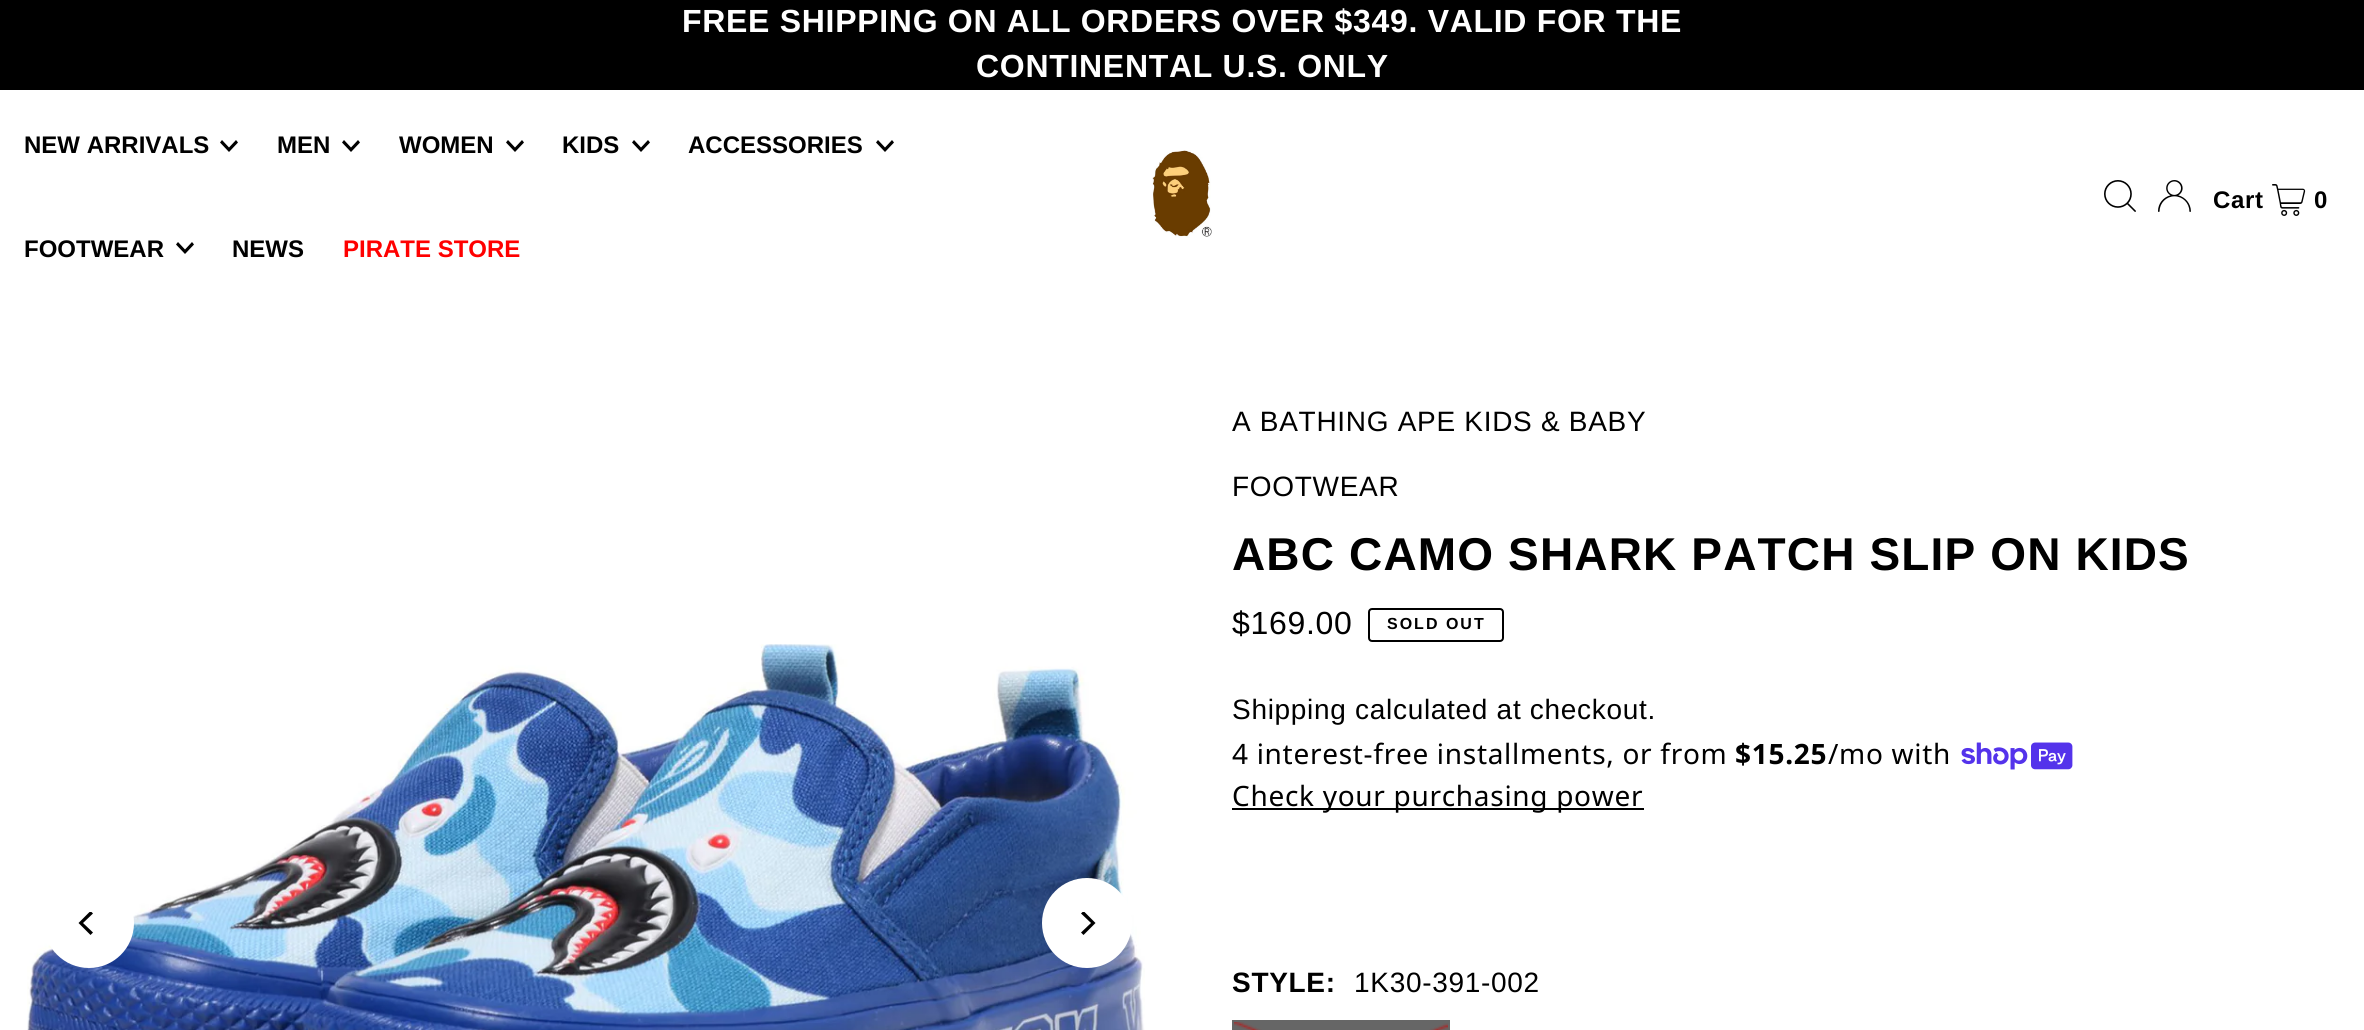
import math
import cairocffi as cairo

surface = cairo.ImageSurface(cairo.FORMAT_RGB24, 2364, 1030)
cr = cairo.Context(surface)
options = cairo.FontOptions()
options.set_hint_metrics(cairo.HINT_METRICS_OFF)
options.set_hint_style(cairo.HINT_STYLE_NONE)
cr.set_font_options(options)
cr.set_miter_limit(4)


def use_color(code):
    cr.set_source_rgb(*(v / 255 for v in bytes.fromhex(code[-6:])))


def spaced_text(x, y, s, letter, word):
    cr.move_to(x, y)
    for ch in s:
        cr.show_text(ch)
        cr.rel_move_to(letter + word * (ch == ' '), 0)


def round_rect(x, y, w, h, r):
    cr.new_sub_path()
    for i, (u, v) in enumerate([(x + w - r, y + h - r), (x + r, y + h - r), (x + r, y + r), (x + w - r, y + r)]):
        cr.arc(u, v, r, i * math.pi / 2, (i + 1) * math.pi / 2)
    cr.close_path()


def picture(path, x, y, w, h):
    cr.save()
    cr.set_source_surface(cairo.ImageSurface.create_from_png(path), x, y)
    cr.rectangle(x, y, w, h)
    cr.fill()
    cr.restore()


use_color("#ffffff")
cr.paint()
use_color("#000000")
cr.rectangle(0, 0, 2364, 90)
cr.fill()
cr.select_font_face("Liberation Sans", cairo.FONT_SLANT_NORMAL, cairo.FONT_WEIGHT_BOLD)
cr.set_font_size(32)
use_color("#ffffff")
spaced_text(682, 32, "FREE SHIPPING ON ALL ORDERS OVER $349. VALID FOR THE", 0.7, 0)
spaced_text(976, 77, "CONTINENTAL U.S. ONLY", 0.7, 0)
cr.set_font_size(24)
use_color("#000000")
cr.move_to(24, 153)
cr.show_text("NEW ARRIVALS")
cr.new_path()
cr.move_to(236, 140)
cr.line_to(229, 147.5)
cr.line_to(222, 140)
cr.line_to(220, 142.5)
cr.line_to(229, 152)
cr.line_to(238, 142.5)
cr.close_path()
cr.fill()
cr.move_to(277, 153)
cr.show_text("MEN")
cr.new_path()
cr.move_to(358, 140)
cr.line_to(351, 147.5)
cr.line_to(344, 140)
cr.line_to(342, 142.5)
cr.line_to(351, 152)
cr.line_to(360, 142.5)
cr.close_path()
cr.fill()
cr.move_to(399, 153)
cr.show_text("WOMEN")
cr.new_path()
cr.move_to(522, 140)
cr.line_to(515, 147.5)
cr.line_to(508, 140)
cr.line_to(506, 142.5)
cr.line_to(515, 152)
cr.line_to(524, 142.5)
cr.close_path()
cr.fill()
cr.move_to(562, 153)
cr.show_text("KIDS")
cr.new_path()
cr.move_to(648, 140)
cr.line_to(641, 147.5)
cr.line_to(634, 140)
cr.line_to(632, 142.5)
cr.line_to(641, 152)
cr.line_to(650, 142.5)
cr.close_path()
cr.fill()
cr.move_to(688, 153)
cr.show_text("ACCESSORIES")
cr.new_path()
cr.move_to(892, 140)
cr.line_to(885, 147.5)
cr.line_to(878, 140)
cr.line_to(876, 142.5)
cr.line_to(885, 152)
cr.line_to(894, 142.5)
cr.close_path()
cr.fill()
cr.move_to(24, 257)
cr.show_text("FOOTWEAR")
cr.new_path()
cr.move_to(192, 242)
cr.line_to(185, 249.5)
cr.line_to(178, 242)
cr.line_to(176, 244.5)
cr.line_to(185, 254)
cr.line_to(194, 244.5)
cr.close_path()
cr.fill()
cr.move_to(232, 257)
cr.show_text("NEWS")
use_color("#ff0000")
cr.move_to(343, 257)
cr.show_text("PIRATE STORE")
picture("img1.png", 1152, 150, 60, 88)
picture("img2.png", 2104, 180, 32, 32)
picture("img3.png", 2158, 180, 33, 32)
use_color("#000000")
spaced_text(2213, 208, "Cart", 0.7, 0)
picture("img4.png", 2272, 184, 34, 32)
spaced_text(2314, 208, "0", 0.7, 0)
picture("img5.png", 27, 644, 1118, 386)
use_color("#ffffff")
cr.arc(89, 923, 45, 0, 2 * math.pi)
cr.fill()
cr.save()
cr.rectangle(76, 912, 24, 24)
cr.clip()
use_color("#000000")
cr.new_path()
cr.move_to(78.5, 923)
cr.line_to(90.5, 935)
cr.line_to(93, 932.5)
cr.line_to(83, 923)
cr.line_to(93, 913.5)
cr.line_to(90.5, 911)
cr.close_path()
cr.fill()
cr.restore()
cr.arc(1087, 923, 45, 0, 2 * math.pi)
cr.fill()
cr.save()
cr.rectangle(1074, 912, 24, 24)
cr.clip()
use_color("#000000")
cr.new_path()
cr.move_to(1095.5, 923)
cr.line_to(1083.5, 911)
cr.line_to(1081, 913.5)
cr.line_to(1091, 923)
cr.line_to(1081, 932.5)
cr.line_to(1083.5, 935)
cr.close_path()
cr.fill()
cr.restore()
cr.select_font_face("Liberation Sans")
cr.set_font_size(28)
use_color("#000000")
spaced_text(1232, 431, "A BATHING APE KIDS & BABY", 0.7, 0)
spaced_text(1232, 496, "FOOTWEAR", 0.7, 0)
cr.select_font_face("Liberation Sans", cairo.FONT_SLANT_NORMAL, cairo.FONT_WEIGHT_BOLD)
cr.set_font_size(46)
spaced_text(1232, 570, "ABC CAMO SHARK PATCH SLIP ON KIDS", 1.15, 0)
cr.select_font_face("Liberation Sans")
cr.set_font_size(32)
spaced_text(1232, 634, "$169.00", 0.7, 0)
round_rect(1369, 609, 134, 32, 3)
cr.stroke()
cr.select_font_face("Liberation Sans", cairo.FONT_SLANT_NORMAL, cairo.FONT_WEIGHT_BOLD)
cr.set_font_size(16)
spaced_text(1387, 629, "SOLD OUT", 2, 0)
cr.select_font_face("Liberation Sans")
cr.set_font_size(28)
spaced_text(1232, 719, "Shipping calculated at checkout.", 0.7, 0)
cr.select_font_face("Noto Sans")
spaced_text(1232, 764, "4 interest-free installments, or from", 0.7, 0)
cr.select_font_face("Noto Sans", cairo.FONT_SLANT_NORMAL, cairo.FONT_WEIGHT_BOLD)
spaced_text(1735, 764, "$15.25", 0.7, 0)
cr.select_font_face("Noto Sans")
spaced_text(1828, 764, "/mo with", 0.7, 0)
picture("img6.png", 1961, 742, 112, 28)
cr.rectangle(1232, 808, 412, 2)
cr.fill()
spaced_text(1232, 806, "Check your purchasing power", 0.7, 0)
cr.select_font_face("Liberation Sans", cairo.FONT_SLANT_NORMAL, cairo.FONT_WEIGHT_BOLD)
spaced_text(1232, 992, "STYLE:", 0.7, 0)
cr.select_font_face("Liberation Sans")
spaced_text(1354, 992, "1K30-391-002", 0.7, 0)
use_color("#666666")
cr.rectangle(1232, 1020, 218, 10)
cr.fill()
picture("img7.png", 1234, 1022, 214, 8)
surface.write_to_png("result.png")
